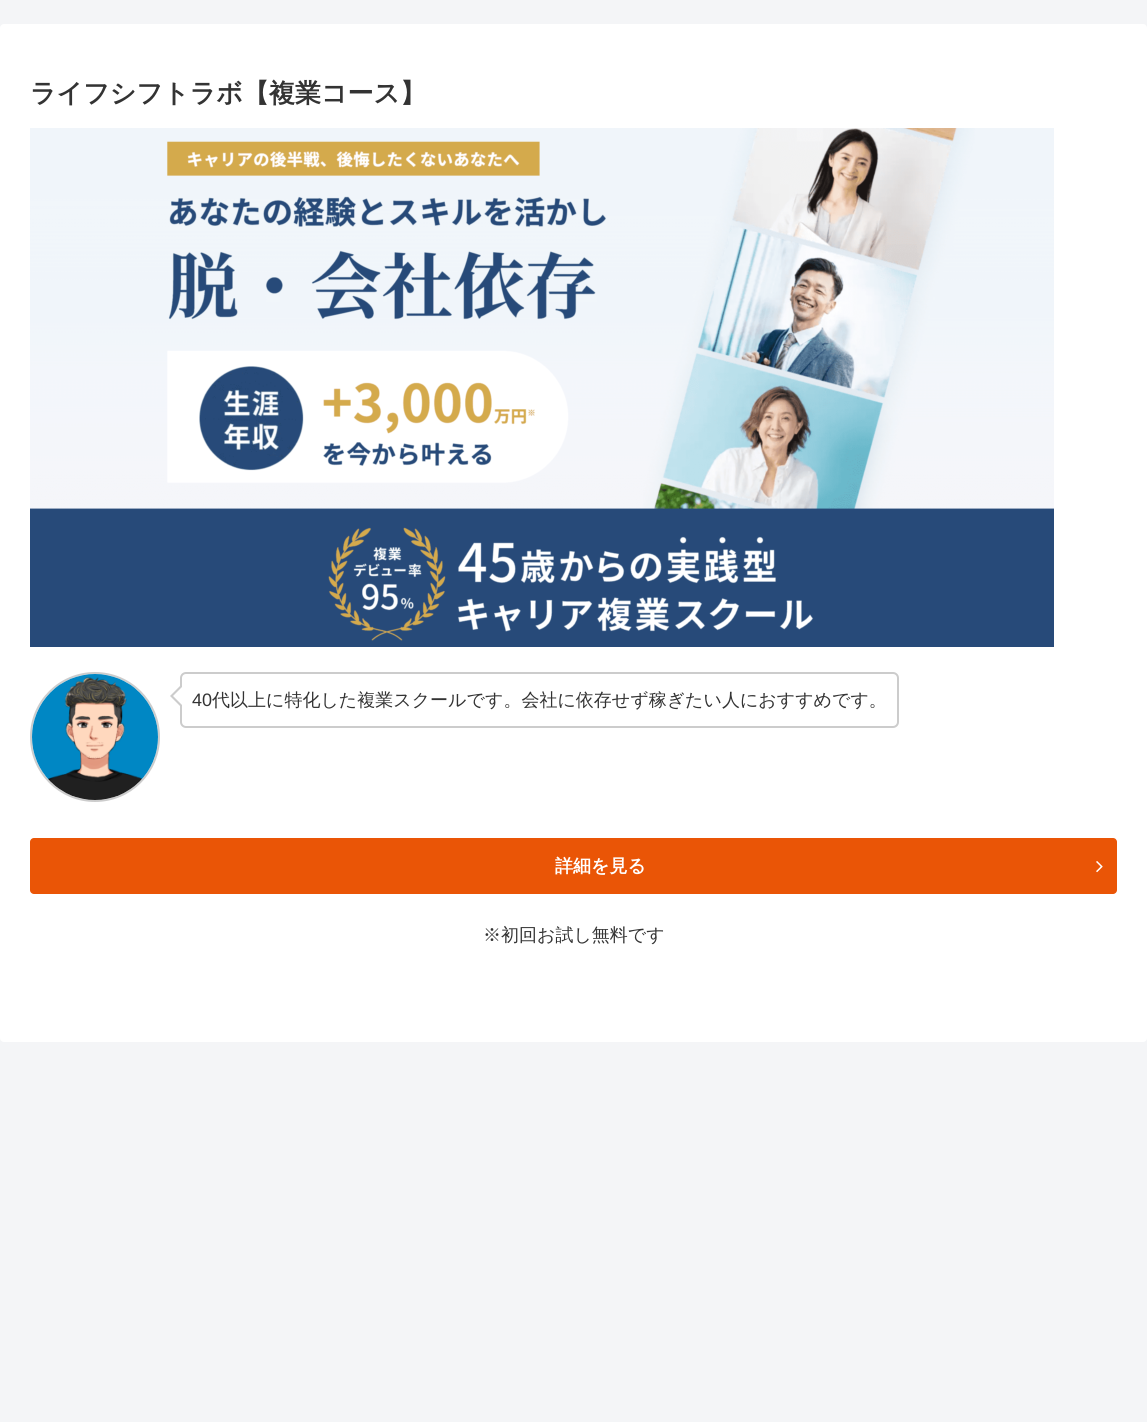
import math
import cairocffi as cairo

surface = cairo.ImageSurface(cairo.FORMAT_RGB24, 1147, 1422)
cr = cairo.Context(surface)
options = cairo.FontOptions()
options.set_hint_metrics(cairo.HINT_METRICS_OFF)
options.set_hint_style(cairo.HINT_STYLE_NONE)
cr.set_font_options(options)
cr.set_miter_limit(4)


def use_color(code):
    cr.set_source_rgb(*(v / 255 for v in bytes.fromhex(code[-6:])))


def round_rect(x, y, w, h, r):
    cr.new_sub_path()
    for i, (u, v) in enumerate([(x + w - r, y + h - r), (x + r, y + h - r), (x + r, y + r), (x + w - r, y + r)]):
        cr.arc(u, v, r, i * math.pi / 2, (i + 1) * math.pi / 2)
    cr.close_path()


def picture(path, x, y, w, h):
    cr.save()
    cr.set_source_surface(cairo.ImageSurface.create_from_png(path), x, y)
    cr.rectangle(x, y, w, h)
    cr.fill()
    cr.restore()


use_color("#f4f5f7")
cr.paint()
use_color("#ffffff")
round_rect(0, 24, 1147, 1018, 4)
cr.fill()
cr.select_font_face("WenQuanYi Zen Hei", cairo.FONT_SLANT_NORMAL, cairo.FONT_WEIGHT_BOLD)
cr.set_font_size(26)
use_color("#333333")
cr.move_to(30, 102)
cr.show_text("ライフシフトラボ【複業コース】")
picture("img1.png", 30, 128, 1024, 519)
cr.arc(95, 737, 64, 0, 2 * math.pi)
use_color("#cccccc")
cr.stroke()
picture("img2.png", 32, 674, 126, 126)
round_rect(181, 673, 717, 54, 5)
cr.stroke()
cr.new_path()
cr.move_to(182, 684)
cr.line_to(182, 708)
cr.line_to(170, 696)
cr.close_path()
cr.fill()
use_color("#ffffff")
cr.new_path()
cr.move_to(185, 684)
cr.line_to(185, 708)
cr.line_to(173, 696)
cr.close_path()
cr.fill()
cr.select_font_face("Liberation Sans")
cr.set_font_size(18)
use_color("#333333")
cr.move_to(192, 706)
cr.show_text("40")
cr.select_font_face("WenQuanYi Zen Hei Medium")
cr.move_to(212, 706)
cr.show_text("代以上に特化した複業スクールです。会社に依存せず稼ぎたい人におすすめです。")
use_color("#ea5506")
round_rect(30, 838, 1087, 56, 4)
cr.fill()
cr.select_font_face("WenQuanYi Zen Hei", cairo.FONT_SLANT_NORMAL, cairo.FONT_WEIGHT_BOLD)
use_color("#ffffff")
cr.move_to(555, 872)
cr.show_text("詳細を見る")
picture("img3.png", 1096, 861, 7, 12)
cr.select_font_face("WenQuanYi Zen Hei Medium")
use_color("#333333")
cr.move_to(483, 941)
cr.show_text("※初回お試し無料です")
surface.write_to_png("result.png")
